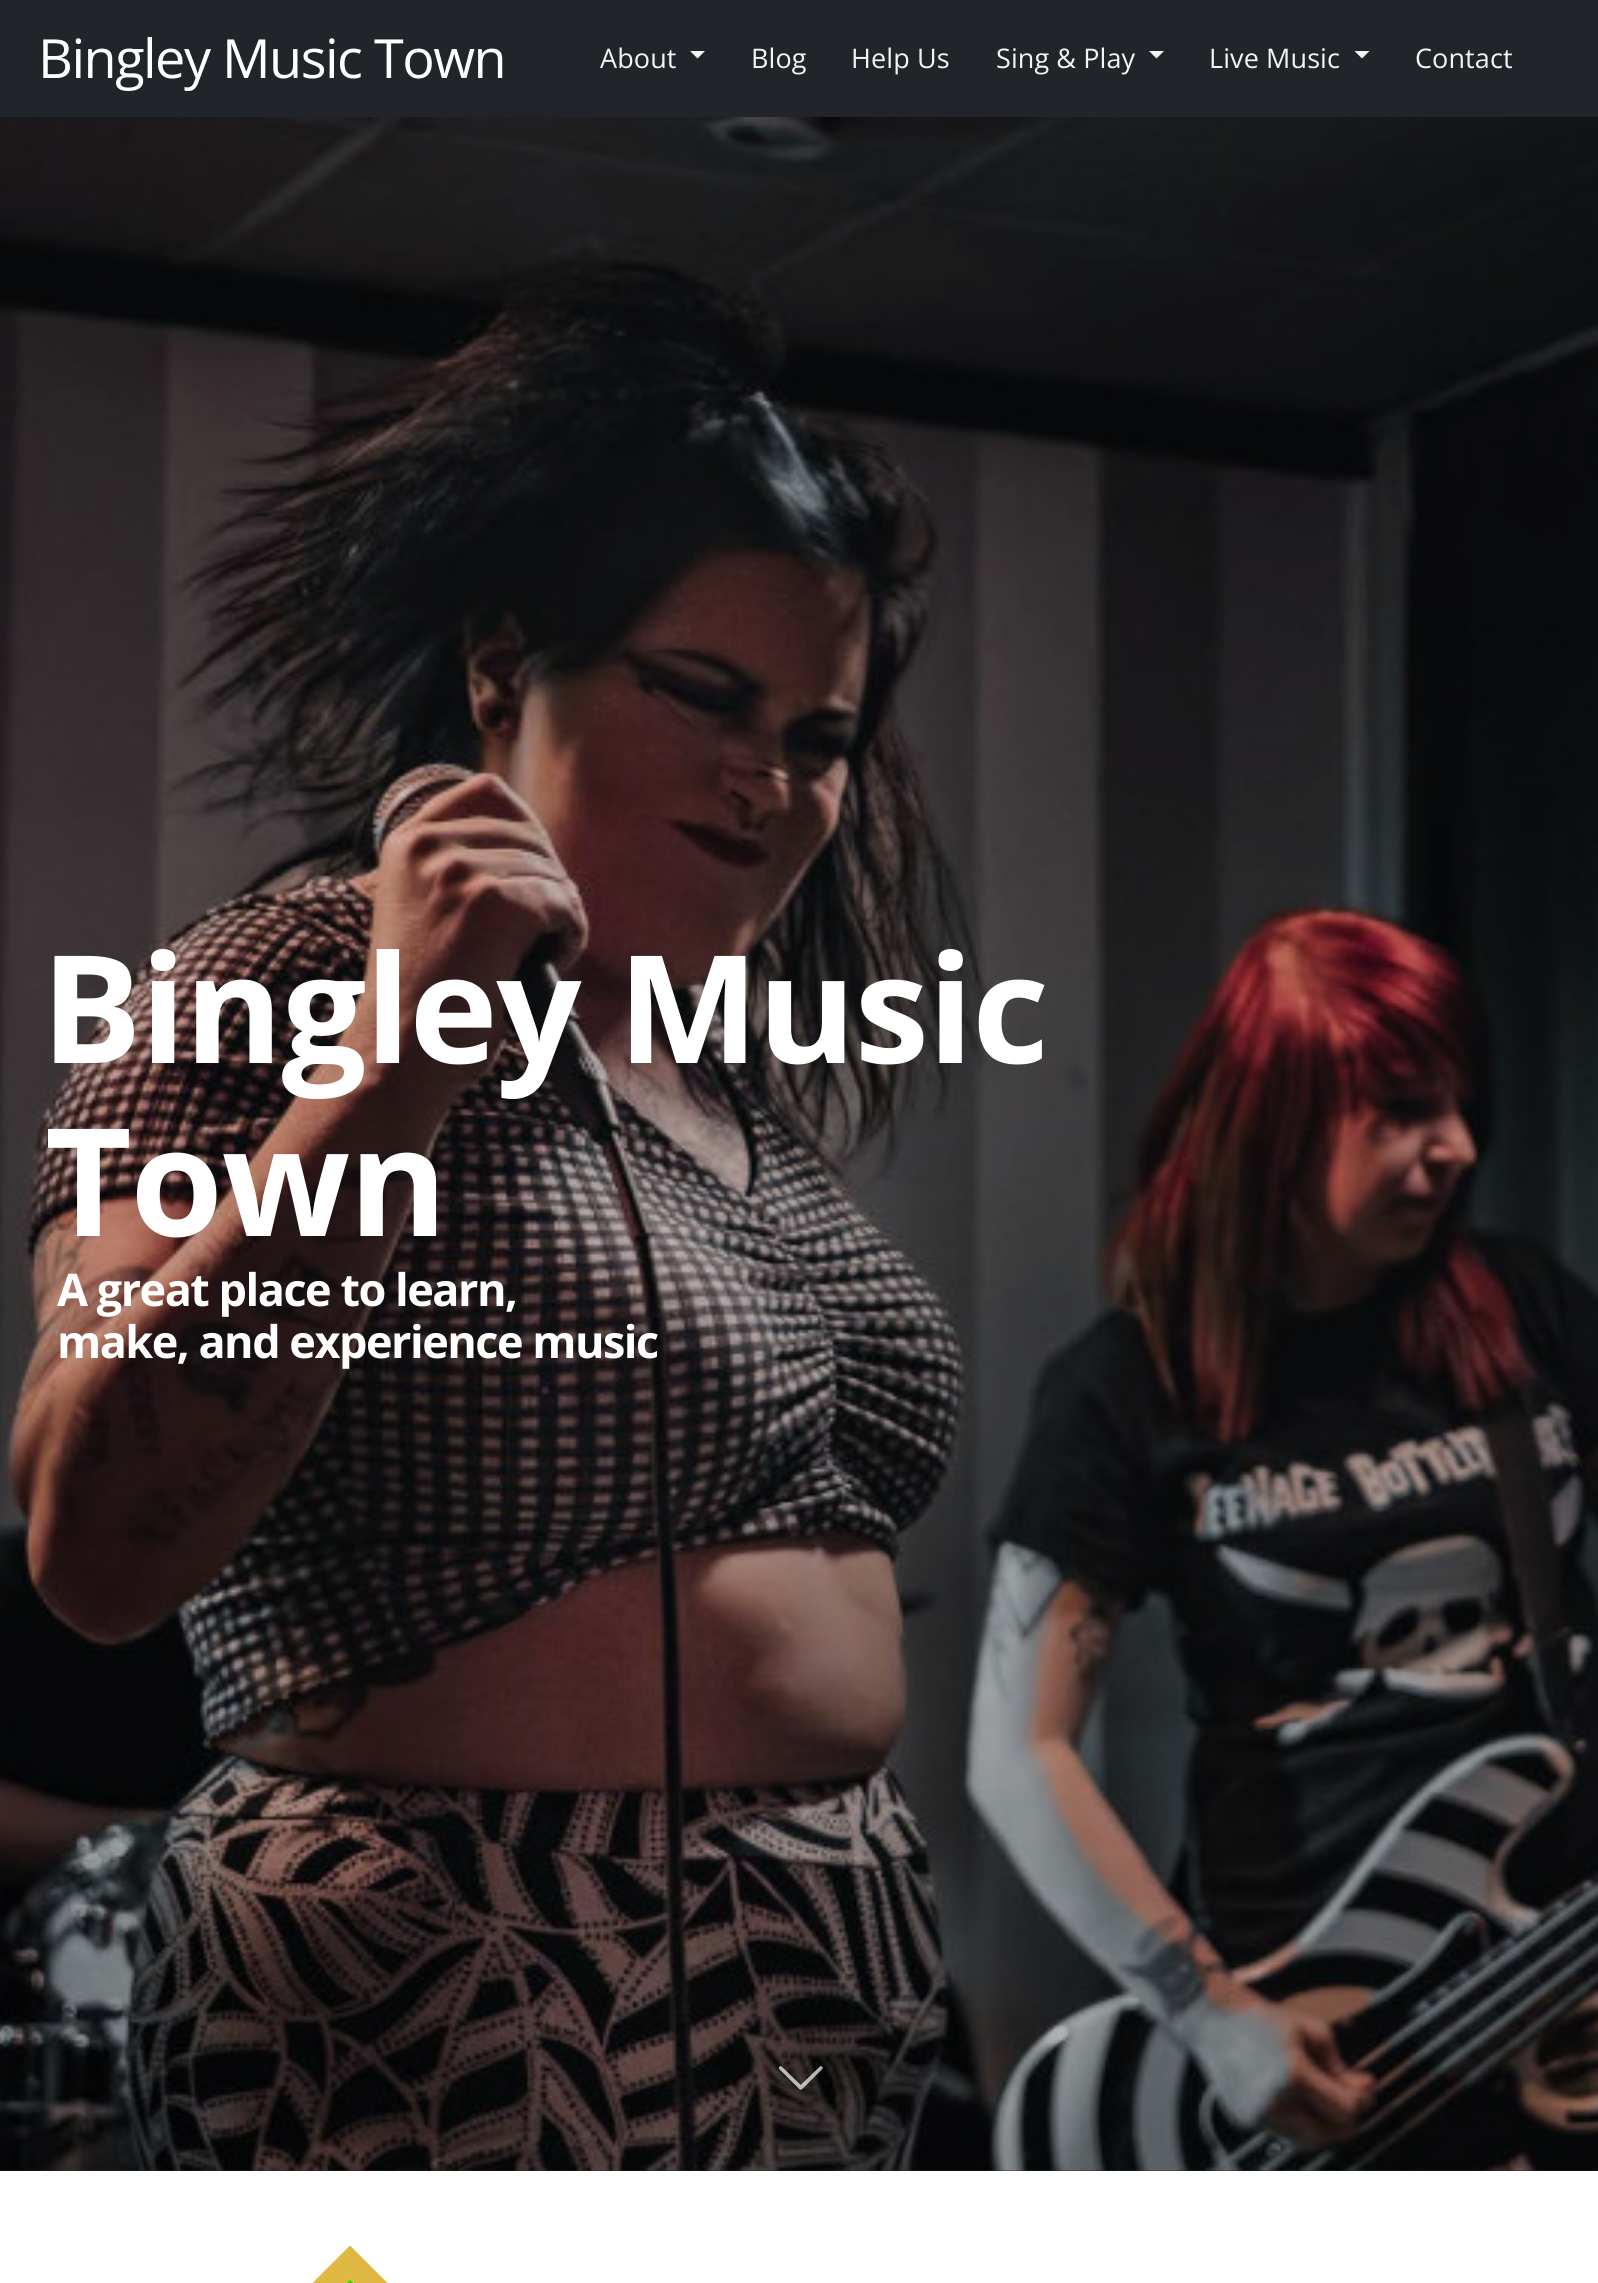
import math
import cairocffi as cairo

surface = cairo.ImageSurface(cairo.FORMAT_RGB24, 1598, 2283)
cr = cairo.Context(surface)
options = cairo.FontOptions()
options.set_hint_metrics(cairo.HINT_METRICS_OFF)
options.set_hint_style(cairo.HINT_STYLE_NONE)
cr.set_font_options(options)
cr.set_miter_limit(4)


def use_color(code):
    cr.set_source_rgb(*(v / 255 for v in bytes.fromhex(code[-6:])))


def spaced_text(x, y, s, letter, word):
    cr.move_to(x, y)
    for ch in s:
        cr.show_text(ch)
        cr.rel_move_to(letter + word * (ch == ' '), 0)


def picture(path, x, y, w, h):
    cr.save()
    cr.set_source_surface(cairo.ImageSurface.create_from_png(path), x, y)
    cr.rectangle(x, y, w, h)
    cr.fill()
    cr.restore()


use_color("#ffffff")
cr.paint()
use_color("#212529")
cr.rectangle(0, 0, 1598, 117)
cr.fill()
cr.select_font_face("Open Sans")
cr.set_font_size(54)
use_color("#ffffff")
spaced_text(38, 78, "Bingley Music Town", -1.5, 0)
cr.set_font_size(27)
use_color("#f4f4f4")
spaced_text(600, 68, "About", 0.1, 0)
cr.new_path()
cr.move_to(690, 51)
cr.line_to(705, 51)
cr.line_to(697.5, 58.5)
cr.close_path()
cr.fill()
spaced_text(751, 68, "Blog", 0.1, 0)
spaced_text(851, 68, "Help Us", 0.1, 0)
spaced_text(996, 68, "Sing & Play", 0.1, 0)
cr.new_path()
cr.move_to(1149, 51)
cr.line_to(1164, 51)
cr.line_to(1156.5, 58.5)
cr.close_path()
cr.fill()
spaced_text(1209, 68, "Live Music", 0.1, 0)
cr.new_path()
cr.move_to(1354.5, 51)
cr.line_to(1369.5, 51)
cr.line_to(1362, 58.5)
cr.close_path()
cr.fill()
spaced_text(1415, 68, "Contact", 0.1, 0)
use_color("#222222")
cr.rectangle(0, 2170, 1598, 1)
cr.fill()
picture("img1.png", 0, 117, 1598, 2054)
cr.select_font_face("Open Sans", cairo.FONT_SLANT_NORMAL, cairo.FONT_WEIGHT_BOLD)
cr.set_font_size(150)
use_color("#ffffff")
spaced_text(41, 1063, "Bingley Music", -1.5, 0)
spaced_text(45, 1236, "Town", -1.5, 0)
cr.set_font_size(45)
spaced_text(57, 1306, "A great place to learn,", -1.5, 0)
spaced_text(57, 1358, "make, and experience music", -1.5, 0)
gradient = cairo.RadialGradient(0, 0, 0, 0, 0, 1)
gradient.set_matrix(cairo.Matrix(1 / 159, 0, 0, 1 / 138, -1 * 800 / 159, -1 * 2073 / 138))
gradient.add_color_stop_rgba(0, 0, 0, 0, 0.15)
gradient.add_color_stop_rgba(0.7, 0, 0, 0, 0)
gradient.add_color_stop_rgba(1, 0, 0, 0, 0)
cr.set_source(gradient)
cr.new_path()
cr.move_to(799.5, 1975.5)
cr.curve_to(861.5, 1975.5, 912, 2019, 912, 2073)
cr.curve_to(912, 2127, 861.5, 2170.5, 799.5, 2170.5)
cr.curve_to(737.5, 2170.5, 687, 2127, 687, 2073)
cr.curve_to(687, 2019, 737.5, 1975.5, 799.5, 1975.5)
cr.close_path()
cr.fill()
picture("img2.png", 778, 2066, 45, 24)
picture("img3.png", 312, 2246, 76, 37)
surface.write_to_png("result.png")
